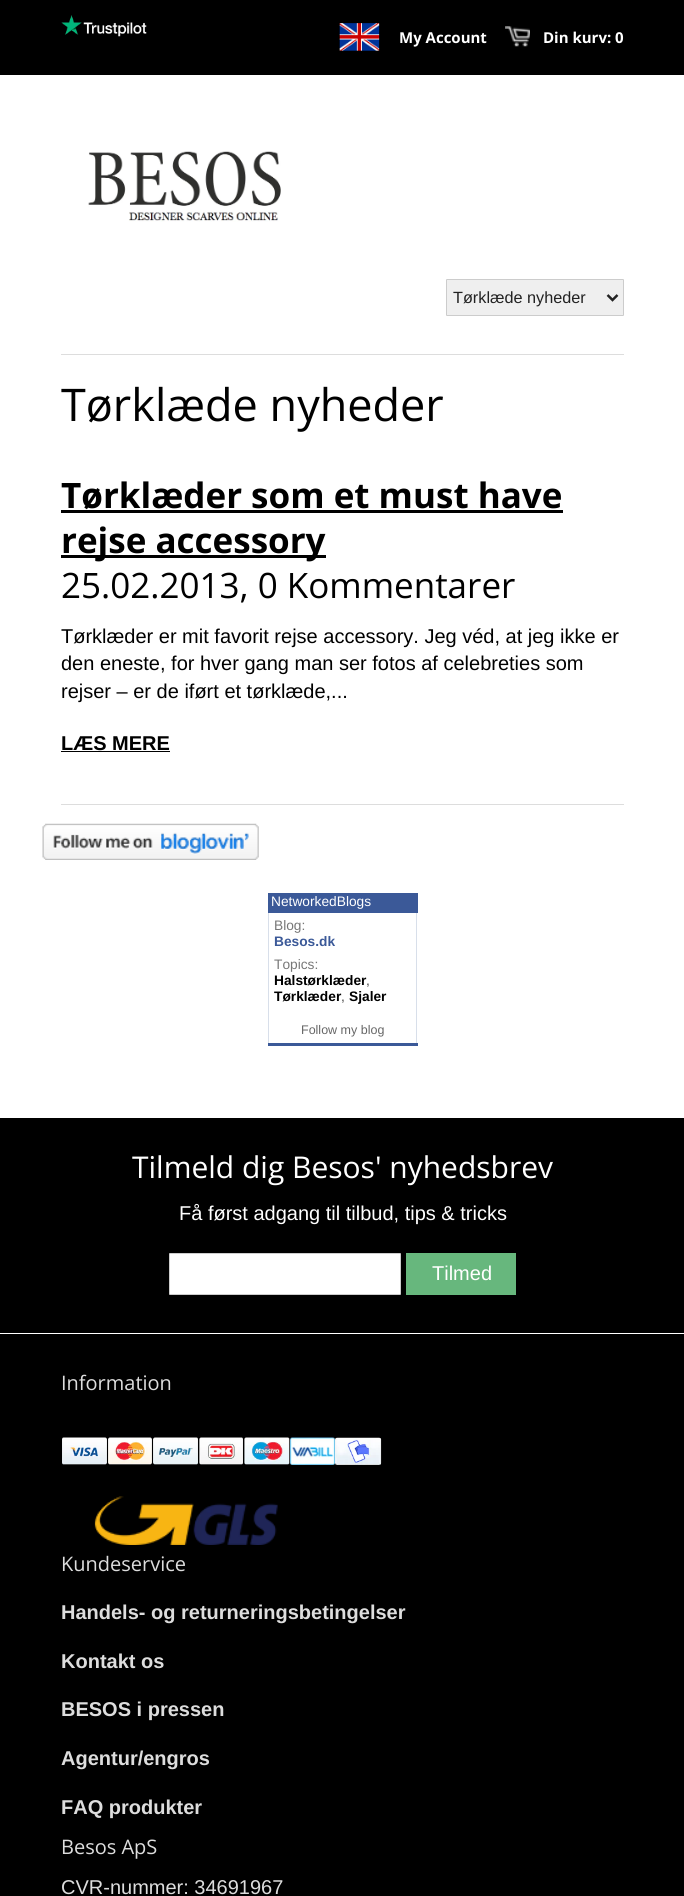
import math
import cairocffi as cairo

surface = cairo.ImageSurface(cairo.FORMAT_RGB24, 684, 1896)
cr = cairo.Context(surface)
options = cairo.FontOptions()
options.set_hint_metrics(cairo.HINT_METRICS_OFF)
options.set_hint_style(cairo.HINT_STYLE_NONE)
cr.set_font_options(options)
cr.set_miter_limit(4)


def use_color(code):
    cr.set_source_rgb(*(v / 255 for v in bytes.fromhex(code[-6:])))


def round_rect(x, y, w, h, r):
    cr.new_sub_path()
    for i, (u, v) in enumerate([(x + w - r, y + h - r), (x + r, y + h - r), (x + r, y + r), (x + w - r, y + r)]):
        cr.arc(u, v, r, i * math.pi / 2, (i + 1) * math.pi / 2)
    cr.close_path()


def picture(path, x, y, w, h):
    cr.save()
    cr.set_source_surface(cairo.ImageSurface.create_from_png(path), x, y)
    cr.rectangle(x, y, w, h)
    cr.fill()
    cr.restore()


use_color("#ffffff")
cr.paint()
use_color("#000000")
cr.rectangle(0, 0, 684, 75)
cr.fill()
picture("img1.png", 61, 15, 86, 22)
picture("img2.png", 339, 23, 41, 28)
cr.select_font_face("Open Sans", cairo.FONT_SLANT_NORMAL, cairo.FONT_WEIGHT_BOLD)
cr.set_font_size(15)
use_color("#ffffff")
cr.move_to(399, 43)
cr.show_text("My Account")
picture("img3.png", 505, 26, 25, 21)
cr.move_to(543, 43)
cr.show_text("Din kurv: 0")
use_color("#dddddd")
cr.rectangle(61, 354, 563, 1)
cr.fill()
picture("img4.png", 88, 151, 193, 71)
use_color("#efefef")
round_rect(446.5, 279.5, 177, 36, 0.5)
cr.fill_preserve()
use_color("#cccccc")
cr.set_line_width(1)
cr.stroke()
cr.new_path()
cr.move_to(607.5, 295)
cr.line_to(612.5, 300)
cr.line_to(617.5, 295)
use_color("#222222")
cr.set_line_width(2.5)
cr.stroke()
cr.select_font_face("Liberation Sans")
cr.set_font_size(16.25)
cr.move_to(453, 303)
cr.show_text("Tørklæde nyheder")
cr.select_font_face("Open Sans")
cr.set_font_size(45)
use_color("#000000")
cr.move_to(61, 421)
cr.show_text("Tørklæde nyheder")
cr.select_font_face("Open Sans", cairo.FONT_SLANT_NORMAL, cairo.FONT_WEIGHT_BOLD)
cr.set_font_size(35)
cr.move_to(61, 508)
cr.show_text("Tørklæder som et must have")
cr.rectangle(61, 510, 502, 3)
cr.fill()
cr.rectangle(61, 555, 265, 3)
cr.fill()
cr.move_to(61, 553)
cr.show_text("rejse accessory")
cr.select_font_face("Open Sans")
cr.move_to(61, 598)
cr.show_text("25.02.2013, 0 Kommentarer")
cr.select_font_face("Liberation Sans")
cr.set_font_size(20)
cr.move_to(61, 643)
cr.show_text("Tørklæder er mit favorit rejse accessory. Jeg véd, at jeg ikke er")
cr.move_to(61, 670)
cr.show_text("den eneste, for hver gang man ser fotos af celebreties som")
cr.move_to(61, 698)
cr.show_text("rejser – er de iført et tørklæde,...")
cr.select_font_face("Liberation Sans", cairo.FONT_SLANT_NORMAL, cairo.FONT_WEIGHT_BOLD)
cr.move_to(61, 750)
cr.show_text("LÆS MERE")
cr.rectangle(61, 751, 109, 1)
cr.fill()
use_color("#dddddd")
cr.rectangle(61, 804, 563, 1)
cr.fill()
picture("img5.png", 42, 823, 217, 37)
use_color("#3b5998")
cr.rectangle(268, 893, 150, 153)
cr.fill()
cr.select_font_face("Liberation Sans")
cr.set_font_size(13.75)
use_color("#ffffff")
cr.move_to(271, 906)
cr.show_text("NetworkedBlogs")
cr.rectangle(269, 913, 149, 130)
cr.fill()
use_color("#d8dfea")
cr.rectangle(416, 913, 1, 130)
cr.fill()
cr.rectangle(268, 913, 1, 130)
cr.fill()
use_color("#777777")
cr.move_to(274, 930)
cr.show_text("Blog:")
cr.select_font_face("Liberation Sans", cairo.FONT_SLANT_NORMAL, cairo.FONT_WEIGHT_BOLD)
use_color("#3b5998")
cr.move_to(274, 946)
cr.show_text("Besos.dk")
cr.select_font_face("Liberation Sans")
use_color("#777777")
cr.move_to(274, 969)
cr.show_text("Topics:")
cr.select_font_face("Liberation Sans", cairo.FONT_SLANT_NORMAL, cairo.FONT_WEIGHT_BOLD)
use_color("#000000")
cr.move_to(274, 985)
cr.show_text("Halstørklæder")
cr.select_font_face("Liberation Sans")
use_color("#444444")
cr.move_to(366, 985)
cr.show_text(",")
cr.select_font_face("Liberation Sans", cairo.FONT_SLANT_NORMAL, cairo.FONT_WEIGHT_BOLD)
use_color("#000000")
cr.move_to(274, 1001)
cr.show_text("Tørklæder")
cr.select_font_face("Liberation Sans")
use_color("#444444")
cr.move_to(341, 1001)
cr.show_text(",")
cr.select_font_face("Liberation Sans", cairo.FONT_SLANT_NORMAL, cairo.FONT_WEIGHT_BOLD)
use_color("#000000")
cr.move_to(349, 1001)
cr.show_text("Sjaler")
cr.select_font_face("Liberation Sans")
cr.set_font_size(12.5)
use_color("#666666")
cr.move_to(301, 1034)
cr.show_text("Follow my blog")
use_color("#000000")
cr.rectangle(0, 1118, 684, 778)
cr.fill()
cr.select_font_face("Open Sans")
cr.set_font_size(30)
use_color("#ffffff")
cr.move_to(132, 1178)
cr.show_text("Tilmeld dig Besos' nyhedsbrev")
cr.select_font_face("Liberation Sans")
cr.set_font_size(20)
cr.move_to(179, 1220)
cr.show_text("Få først adgang til tilbud, tips & tricks")
cr.rectangle(0, 1333, 684, 1)
cr.fill()
round_rect(169.5, 1253.5, 231, 41, 0.5)
cr.fill_preserve()
use_color("#cccccc")
cr.set_line_width(1)
cr.stroke()
use_color("#67b77d")
cr.rectangle(406, 1253, 110, 42)
cr.fill()
use_color("#ffffff")
cr.move_to(432, 1280)
cr.show_text("Tilmed")
cr.select_font_face("Open Sans")
use_color("#dddddd")
cr.move_to(61, 1390)
cr.show_text("Information")
picture("img6.png", 62, 1437, 45, 28)
picture("img7.png", 108, 1437, 44, 28)
picture("img8.png", 153, 1437, 45, 28)
picture("img9.png", 199, 1437, 44, 28)
picture("img10.png", 244, 1437, 46, 28)
picture("img11.png", 290, 1437, 45, 28)
picture("img12.png", 335, 1437, 47, 28)
picture("img13.png", 94, 1496, 184, 49)
cr.move_to(61, 1571)
cr.show_text("Kundeservice")
cr.select_font_face("Liberation Sans", cairo.FONT_SLANT_NORMAL, cairo.FONT_WEIGHT_BOLD)
cr.move_to(61, 1619)
cr.show_text("Handels- og returneringsbetingelser")
cr.move_to(61, 1668)
cr.show_text("Kontakt os")
cr.move_to(61, 1716)
cr.show_text("BESOS i pressen")
cr.move_to(61, 1765)
cr.show_text("Agentur/engros")
cr.move_to(61, 1814)
cr.show_text("FAQ produkter")
cr.select_font_face("Open Sans")
cr.move_to(61, 1854)
cr.show_text("Besos ApS")
cr.select_font_face("Liberation Sans")
cr.move_to(61, 1894)
cr.show_text("CVR-nummer: 34691967")
surface.write_to_png("result.png")
